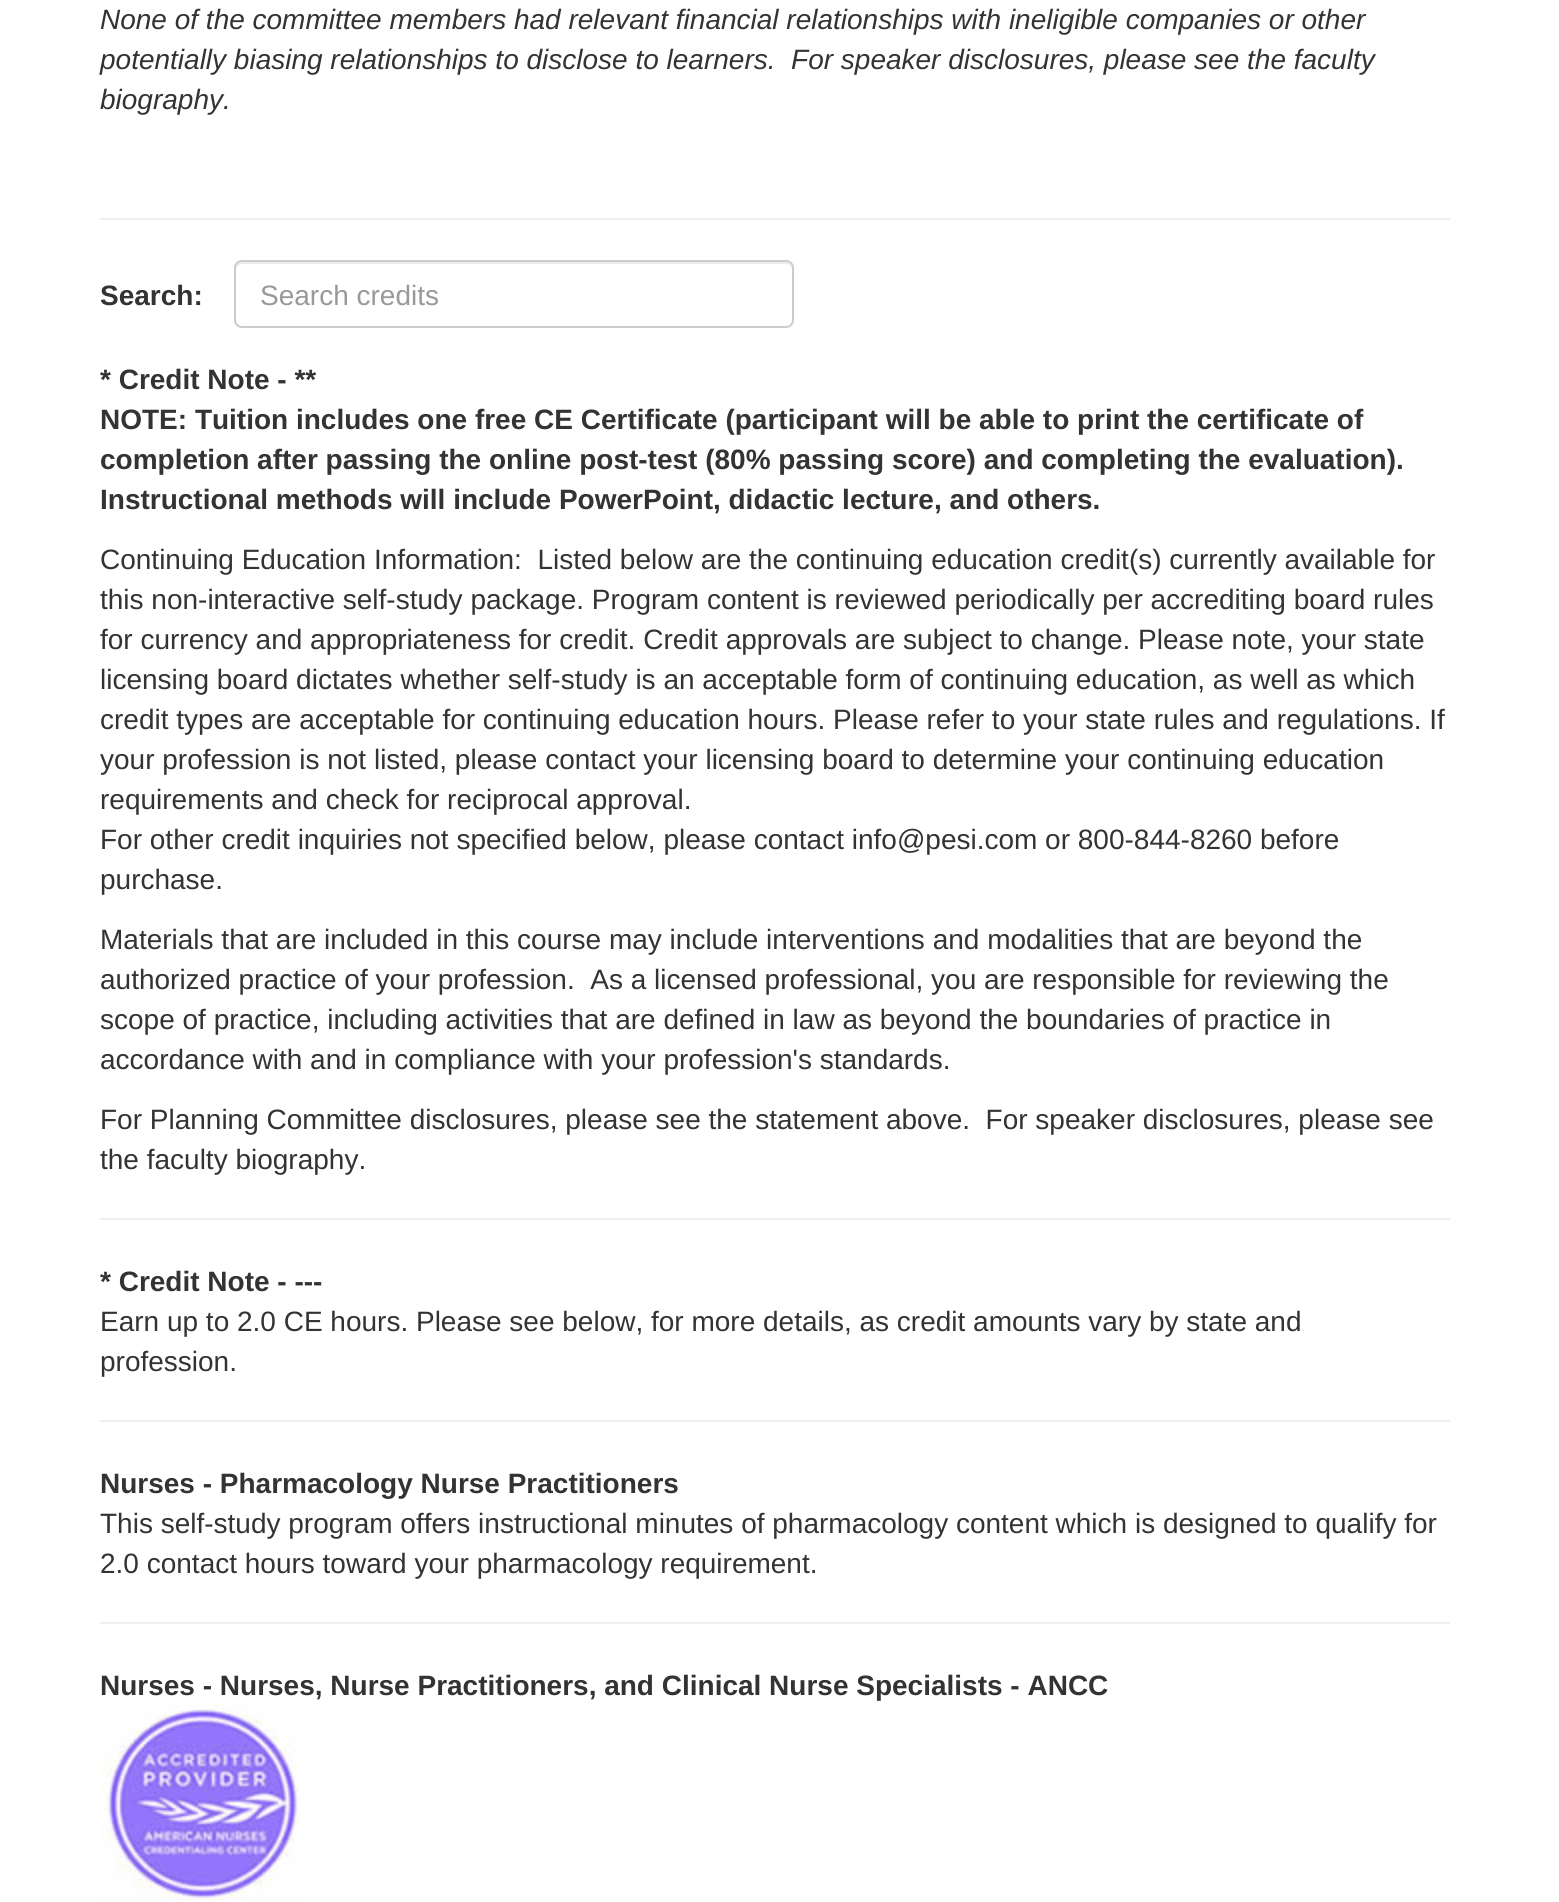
import math
import cairocffi as cairo

surface = cairo.ImageSurface(cairo.FORMAT_RGB24, 1559, 1902)
cr = cairo.Context(surface)
options = cairo.FontOptions()
options.set_hint_metrics(cairo.HINT_METRICS_OFF)
options.set_hint_style(cairo.HINT_STYLE_NONE)
cr.set_font_options(options)
cr.set_miter_limit(4)


def use_color(code):
    cr.set_source_rgb(*(v / 255 for v in bytes.fromhex(code[-6:])))


def round_rect(x, y, w, h, r):
    cr.new_sub_path()
    for i, (u, v) in enumerate([(x + w - r, y + h - r), (x + r, y + h - r), (x + r, y + r), (x + w - r, y + r)]):
        cr.arc(u, v, r, i * math.pi / 2, (i + 1) * math.pi / 2)
    cr.close_path()


def picture(path, x, y, w, h):
    cr.save()
    cr.set_source_surface(cairo.ImageSurface.create_from_png(path), x, y)
    cr.rectangle(x, y, w, h)
    cr.fill()
    cr.restore()


use_color("#ffffff")
cr.paint()
cr.select_font_face("Liberation Sans", cairo.FONT_SLANT_ITALIC)
cr.set_font_size(28)
use_color("#333333")
cr.move_to(100, 29)
cr.show_text("None of the committee members had relevant financial relationships with ineligible companies or other")
cr.move_to(100, 69)
cr.show_text("potentially biasing relationships to disclose to learners.  For speaker disclosures, please see the faculty")
cr.move_to(100, 109)
cr.show_text("biography.")
use_color("#eeeeee")
cr.rectangle(100, 218, 1350, 2)
cr.fill()
cr.select_font_face("Liberation Sans", cairo.FONT_SLANT_NORMAL, cairo.FONT_WEIGHT_BOLD)
use_color("#333333")
cr.move_to(100, 305)
cr.show_text("Search:")
use_color("#ececec")
cr.new_path()
cr.move_to(242, 264)
cr.line_to(786, 264)
cr.curve_to(789, 264, 792, 267, 792, 270)
cr.line_to(792, 268)
cr.curve_to(792, 265, 789, 262, 786, 262)
cr.line_to(242, 262)
cr.curve_to(239, 262, 236, 265, 236, 268)
cr.line_to(236, 270)
cr.curve_to(236, 267, 239, 264, 242, 264)
cr.close_path()
cr.fill()
round_rect(235, 261, 558, 66, 7)
use_color("#cccccc")
cr.stroke()
cr.select_font_face("Liberation Sans")
use_color("#999999")
cr.move_to(260, 305)
cr.show_text("Search credits")
cr.select_font_face("Liberation Sans", cairo.FONT_SLANT_NORMAL, cairo.FONT_WEIGHT_BOLD)
use_color("#333333")
cr.move_to(100, 389)
cr.show_text("* Credit Note - **")
cr.move_to(100, 429)
cr.show_text("NOTE: Tuition includes one free CE Certificate (participant will be able to print the certificate of")
cr.move_to(100, 469)
cr.show_text("completion after passing the online post-test (80% passing score) and completing the evaluation).")
cr.move_to(100, 509)
cr.show_text("Instructional methods will include PowerPoint, didactic lecture, and others.")
cr.select_font_face("Liberation Sans")
cr.move_to(100, 569)
cr.show_text("Continuing Education Information:  Listed below are the continuing education credit(s) currently available for")
cr.move_to(100, 609)
cr.show_text("this non-interactive self-study package. Program content is reviewed periodically per accrediting board rules")
cr.move_to(100, 649)
cr.show_text("for currency and appropriateness for credit. Credit approvals are subject to change. Please note, your state")
cr.move_to(100, 689)
cr.show_text("licensing board dictates whether self-study is an acceptable form of continuing education, as well as which")
cr.move_to(100, 729)
cr.show_text("credit types are acceptable for continuing education hours. Please refer to your state rules and regulations. If")
cr.move_to(100, 769)
cr.show_text("your profession is not listed, please contact your licensing board to determine your continuing education")
cr.move_to(100, 809)
cr.show_text("requirements and check for reciprocal approval.")
cr.move_to(100, 849)
cr.show_text("For other credit inquiries not specified below, please contact info@pesi.com or 800-844-8260 before")
cr.move_to(100, 889)
cr.show_text("purchase.")
cr.move_to(100, 949)
cr.show_text("Materials that are included in this course may include interventions and modalities that are beyond the")
cr.move_to(100, 989)
cr.show_text("authorized practice of your profession.  As a licensed professional, you are responsible for reviewing the")
cr.move_to(100, 1029)
cr.show_text("scope of practice, including activities that are defined in law as beyond the boundaries of practice in")
cr.move_to(100, 1069)
cr.show_text("accordance with and in compliance with your profession's standards.")
cr.move_to(100, 1129)
cr.show_text("For Planning Committee disclosures, please see the statement above.  For speaker disclosures, please see")
cr.move_to(100, 1169)
cr.show_text("the faculty biography.")
use_color("#eeeeee")
cr.rectangle(100, 1218, 1350, 2)
cr.fill()
cr.select_font_face("Liberation Sans", cairo.FONT_SLANT_NORMAL, cairo.FONT_WEIGHT_BOLD)
use_color("#333333")
cr.move_to(100, 1291)
cr.show_text("* Credit Note - ---")
cr.select_font_face("Liberation Sans")
cr.move_to(100, 1331)
cr.show_text("Earn up to 2.0 CE hours. Please see below, for more details, as credit amounts vary by state and")
cr.move_to(100, 1371)
cr.show_text("profession.")
use_color("#eeeeee")
cr.rectangle(100, 1420, 1350, 2)
cr.fill()
cr.select_font_face("Liberation Sans", cairo.FONT_SLANT_NORMAL, cairo.FONT_WEIGHT_BOLD)
use_color("#333333")
cr.move_to(100, 1493)
cr.show_text("Nurses - Pharmacology Nurse Practitioners")
cr.select_font_face("Liberation Sans")
cr.move_to(100, 1533)
cr.show_text("This self-study program offers instructional minutes of pharmacology content which is designed to qualify for")
cr.move_to(100, 1573)
cr.show_text("2.0 contact hours toward your pharmacology requirement.")
use_color("#eeeeee")
cr.rectangle(100, 1622, 1350, 2)
cr.fill()
cr.select_font_face("Liberation Sans", cairo.FONT_SLANT_NORMAL, cairo.FONT_WEIGHT_BOLD)
use_color("#333333")
cr.move_to(100, 1695)
cr.show_text("Nurses - Nurses, Nurse Practitioners, and Clinical Nurse Specialists - ANCC")
picture("img1.png", 101, 1704, 199, 196)
surface.write_to_png("result.png")
